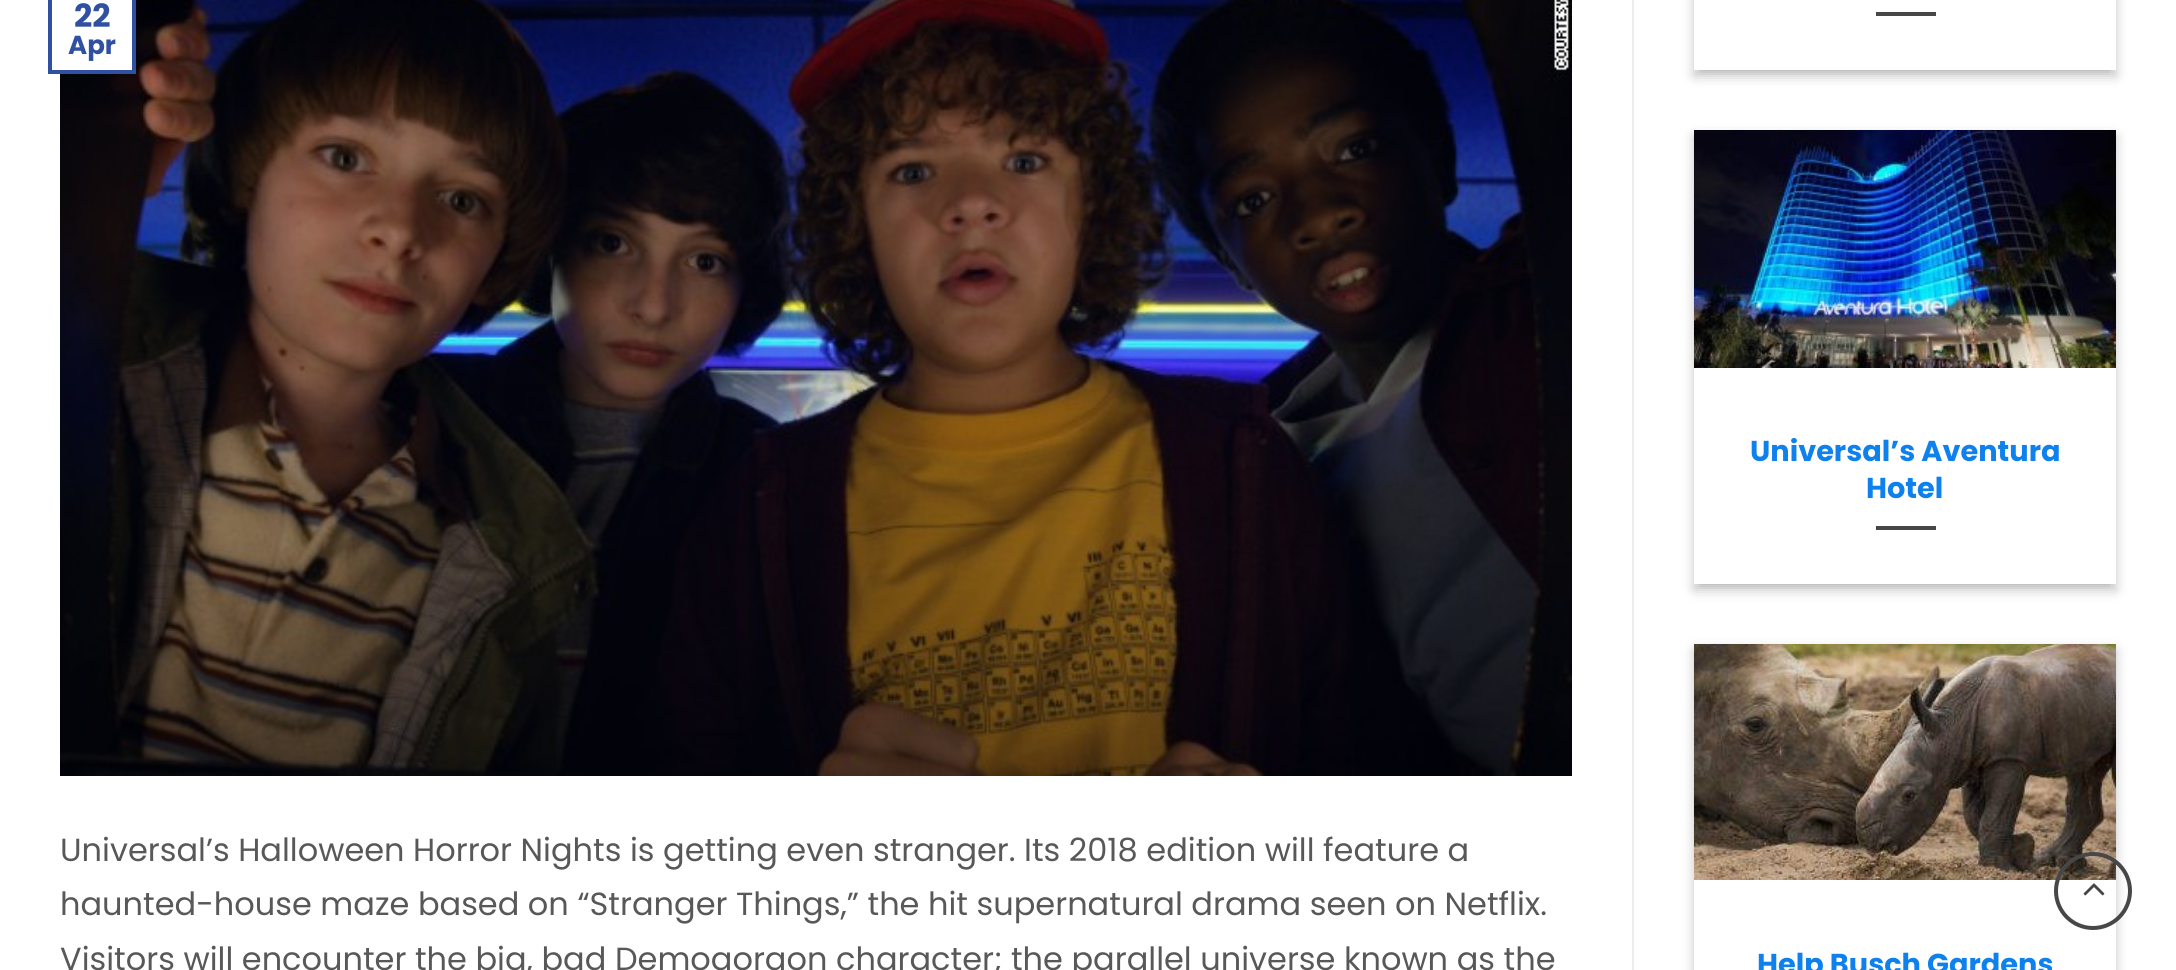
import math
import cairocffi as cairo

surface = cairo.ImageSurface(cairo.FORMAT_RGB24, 2176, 970)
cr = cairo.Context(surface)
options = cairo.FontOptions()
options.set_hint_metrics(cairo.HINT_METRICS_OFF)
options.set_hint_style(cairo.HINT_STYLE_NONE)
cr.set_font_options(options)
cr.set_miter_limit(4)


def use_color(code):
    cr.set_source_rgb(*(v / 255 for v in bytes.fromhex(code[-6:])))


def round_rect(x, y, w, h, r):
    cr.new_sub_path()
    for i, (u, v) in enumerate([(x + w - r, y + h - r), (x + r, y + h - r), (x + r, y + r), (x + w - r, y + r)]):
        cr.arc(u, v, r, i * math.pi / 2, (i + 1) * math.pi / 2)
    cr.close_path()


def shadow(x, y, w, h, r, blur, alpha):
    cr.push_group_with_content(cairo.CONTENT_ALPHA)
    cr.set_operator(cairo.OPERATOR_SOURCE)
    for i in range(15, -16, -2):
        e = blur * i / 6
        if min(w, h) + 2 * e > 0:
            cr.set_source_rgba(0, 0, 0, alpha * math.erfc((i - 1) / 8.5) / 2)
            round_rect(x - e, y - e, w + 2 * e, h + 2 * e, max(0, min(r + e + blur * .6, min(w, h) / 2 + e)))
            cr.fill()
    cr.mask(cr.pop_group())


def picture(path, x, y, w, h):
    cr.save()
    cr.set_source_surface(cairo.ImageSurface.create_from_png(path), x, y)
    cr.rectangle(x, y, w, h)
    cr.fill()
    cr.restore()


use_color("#ffffff")
cr.paint()
picture("img1.png", 60, 0, 1512, 776)
use_color("#ffffff")
cr.rectangle(60, 0, 72, 70)
cr.fill()
cr.rectangle(50, -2, 84, 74)
use_color("#3050a1")
cr.set_line_width(4)
cr.stroke()
cr.select_font_face("Poppins", cairo.FONT_SLANT_NORMAL, cairo.FONT_WEIGHT_BOLD)
cr.set_font_size(32)
cr.move_to(74, 27)
cr.show_text("22")
cr.set_font_size(26)
cr.move_to(68, 54)
cr.show_text("Apr")
cr.select_font_face("Poppins")
cr.set_font_size(32)
use_color("#585858")
cr.move_to(60, 861)
cr.show_text("Universal’s Halloween Horror Nights is getting even stranger. Its 2018 edition will feature a")
cr.move_to(60, 915)
cr.show_text("haunted-house maze based on “Stranger Things,” the hit supernatural drama seen on Netflix.")
cr.move_to(60, 970)
cr.show_text("Visitors will encounter the big, bad Demogorgon character; the parallel universe known as the")
use_color("#ececec")
cr.rectangle(1632, 0, 2, 970)
cr.fill()
cr.save()
cr.set_fill_rule(cairo.FILL_RULE_EVEN_ODD)
cr.new_path()
cr.move_to(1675, 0)
cr.line_to(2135, 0)
cr.line_to(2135, 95)
cr.line_to(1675, 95)
cr.close_path()
cr.move_to(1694, -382)
cr.line_to(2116, -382)
cr.line_to(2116, 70)
cr.line_to(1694, 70)
cr.close_path()
cr.clip()
use_color("#000000")
shadow(1694, -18, 422, 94, 0, 6, 0.23)
cr.restore()
cr.save()
cr.rectangle(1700, 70, 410, 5)
cr.clip()
use_color("#000000")
shadow(1702, -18, 406, 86, 0, 6, 0.16)
cr.restore()
use_color("#474747")
cr.rectangle(1876, 12, 60, 4)
cr.fill()
cr.save()
cr.set_fill_rule(cairo.FILL_RULE_EVEN_ODD)
cr.new_path()
cr.move_to(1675, 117)
cr.line_to(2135, 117)
cr.line_to(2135, 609)
cr.line_to(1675, 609)
cr.close_path()
cr.move_to(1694, 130)
cr.line_to(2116, 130)
cr.line_to(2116, 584)
cr.line_to(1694, 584)
cr.close_path()
cr.clip()
use_color("#000000")
shadow(1694, 136, 422, 454, 0, 6, 0.23)
cr.restore()
cr.save()
cr.rectangle(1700, 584, 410, 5)
cr.clip()
use_color("#000000")
shadow(1702, 144, 406, 438, 0, 6, 0.16)
cr.restore()
picture("img2.png", 1694, 130, 422, 238)
cr.select_font_face("Poppins", cairo.FONT_SLANT_NORMAL, cairo.FONT_WEIGHT_BOLD)
cr.set_font_size(28.75)
use_color("#0e81ed")
cr.move_to(1750, 461)
cr.show_text("Universal’s Aventura")
cr.move_to(1866, 498)
cr.show_text("Hotel")
use_color("#474747")
cr.rectangle(1876, 526, 60, 4)
cr.fill()
cr.save()
cr.set_fill_rule(cairo.FILL_RULE_EVEN_ODD)
cr.new_path()
cr.move_to(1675, 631)
cr.line_to(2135, 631)
cr.line_to(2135, 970)
cr.line_to(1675, 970)
cr.close_path()
cr.move_to(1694, 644)
cr.line_to(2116, 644)
cr.line_to(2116, 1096)
cr.line_to(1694, 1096)
cr.close_path()
cr.clip()
use_color("#000000")
shadow(1694, 650, 422, 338, 0, 6, 0.23)
cr.restore()
picture("img3.png", 1694, 644, 422, 236)
use_color("#0e81ed")
cr.move_to(1757, 974)
cr.show_text("Help Busch Gardens")
cr.new_path()
cr.arc(2093, 891, 37, 0, 2 * math.pi)
use_color("#474747")
cr.stroke()
picture("img4.png", 2083, 883, 22, 13)
surface.write_to_png("result.png")
